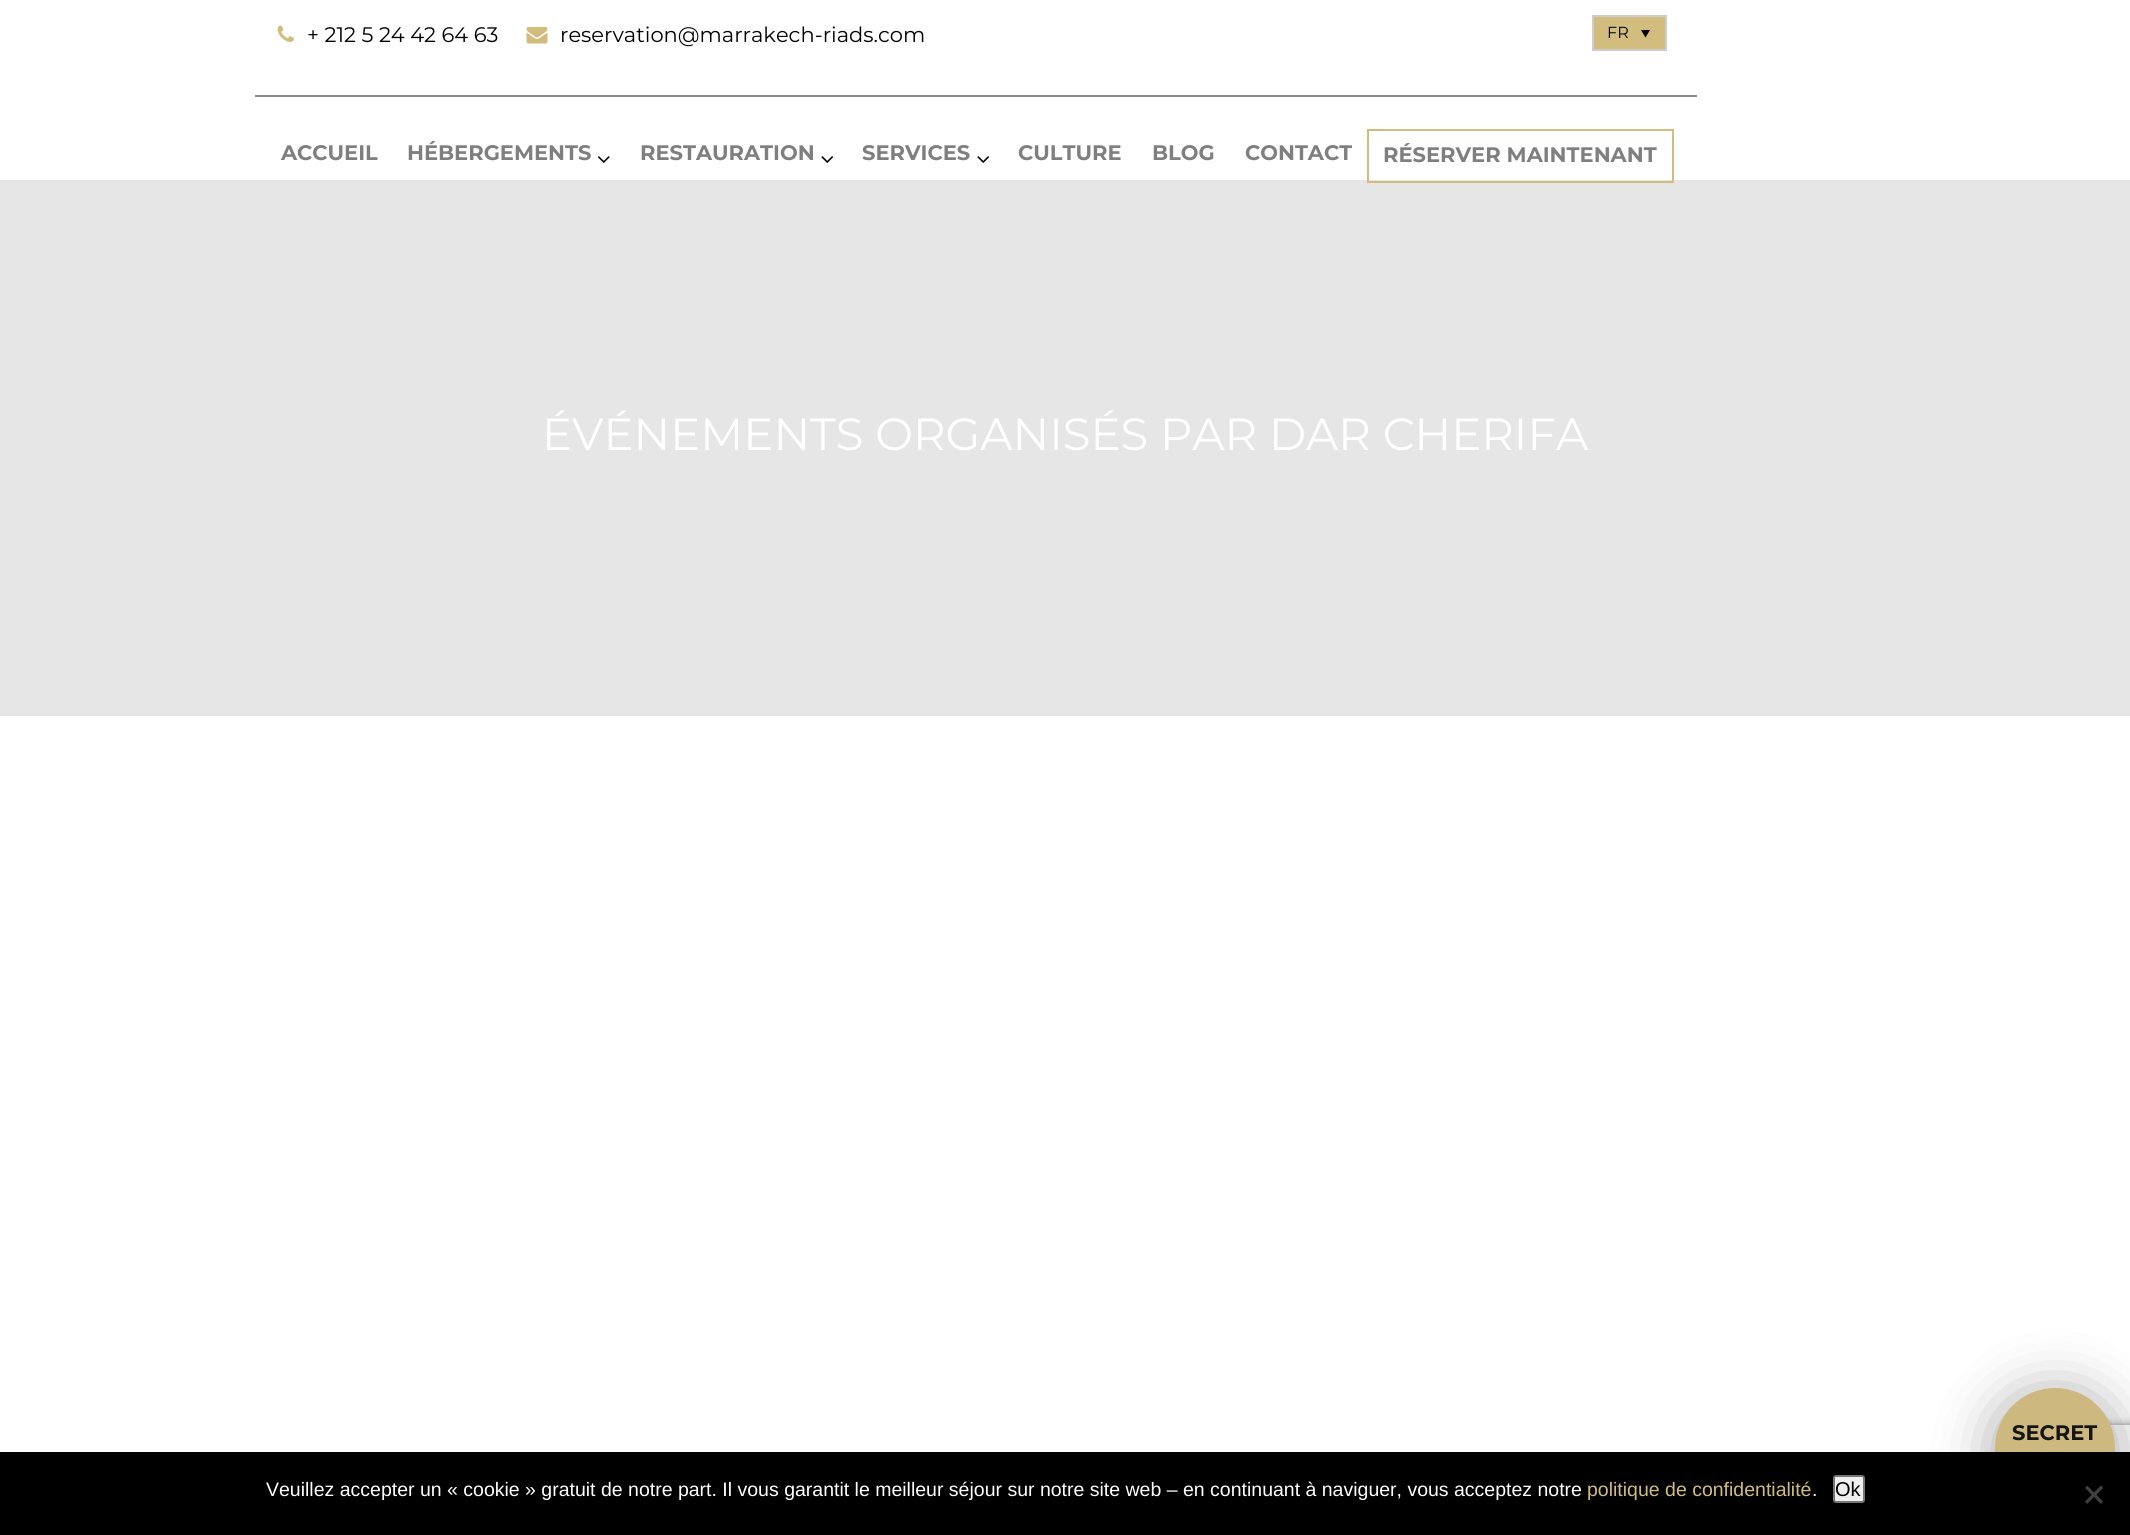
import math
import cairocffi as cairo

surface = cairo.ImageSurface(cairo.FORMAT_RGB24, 2130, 1535)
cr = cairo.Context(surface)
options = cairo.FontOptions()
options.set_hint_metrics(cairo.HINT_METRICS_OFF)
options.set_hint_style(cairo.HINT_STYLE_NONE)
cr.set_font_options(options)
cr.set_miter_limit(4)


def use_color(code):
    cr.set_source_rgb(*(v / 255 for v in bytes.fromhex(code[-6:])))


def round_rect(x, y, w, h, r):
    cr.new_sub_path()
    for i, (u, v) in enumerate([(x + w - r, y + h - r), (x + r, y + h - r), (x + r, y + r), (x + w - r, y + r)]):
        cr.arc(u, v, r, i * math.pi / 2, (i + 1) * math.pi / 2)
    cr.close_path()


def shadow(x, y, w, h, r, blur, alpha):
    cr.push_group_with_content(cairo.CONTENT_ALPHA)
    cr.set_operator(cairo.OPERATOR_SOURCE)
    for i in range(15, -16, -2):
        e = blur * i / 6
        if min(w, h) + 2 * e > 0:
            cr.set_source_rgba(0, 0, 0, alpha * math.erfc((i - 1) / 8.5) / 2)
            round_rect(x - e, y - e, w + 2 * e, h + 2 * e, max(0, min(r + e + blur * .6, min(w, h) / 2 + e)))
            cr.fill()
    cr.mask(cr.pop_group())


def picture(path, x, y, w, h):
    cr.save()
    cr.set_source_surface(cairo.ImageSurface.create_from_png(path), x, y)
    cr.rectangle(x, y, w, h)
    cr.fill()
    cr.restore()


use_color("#ffffff")
cr.paint()
picture("img1.png", 277, 25, 17, 17)
cr.select_font_face("Montserrat")
cr.set_font_size(21)
use_color("#000000")
cr.move_to(307, 42)
cr.show_text("+ 212 5 24 42 64 63")
picture("img2.png", 526, 27, 22, 17)
cr.move_to(560, 42)
cr.show_text("reservation@marrakech-riads.com")
use_color("#d2bd7e")
cr.rectangle(1593, 16, 73, 34)
cr.fill_preserve()
use_color("#cdcdcd")
cr.stroke()
cr.set_font_size(16)
use_color("#000000")
cr.move_to(1607, 38)
cr.show_text("FR")
cr.new_path()
cr.move_to(1641, 30)
cr.line_to(1650, 30)
cr.line_to(1645.5, 37.5)
cr.close_path()
cr.fill()
use_color("#898989")
cr.rectangle(255, 95, 1442, 2)
cr.fill()
cr.select_font_face("Montserrat", cairo.FONT_SLANT_NORMAL, cairo.FONT_WEIGHT_BOLD)
cr.set_font_size(21)
use_color("#7f7f7f")
cr.move_to(281, 160)
cr.show_text("ACCUEIL")
cr.move_to(407, 160)
cr.show_text("HÉBERGEMENTS")
picture("img3.png", 598, 156, 12, 7)
cr.move_to(640, 160)
cr.show_text("RESTAURATION")
picture("img4.png", 821, 156, 12, 7)
cr.move_to(862, 160)
cr.show_text("SERVICES")
picture("img4.png", 977, 156, 12, 7)
cr.move_to(1018, 160)
cr.show_text("CULTURE")
cr.move_to(1152, 160)
cr.show_text("BLOG")
cr.move_to(1245, 160)
cr.show_text("CONTACT")
use_color("#e6e6e6")
cr.rectangle(0, 180, 2130, 536)
cr.fill()
cr.rectangle(1368, 130, 305, 52)
use_color("#d2bd7e")
cr.stroke()
use_color("#7f7f7f")
cr.move_to(1383, 162)
cr.show_text("RÉSERVER MAINTENANT")
cr.select_font_face("Montserrat")
cr.set_font_size(45)
use_color("#ffffff")
cr.move_to(542, 450)
cr.show_text("ÉVÉNEMENTS ORGANISÉS PAR DAR CHERIFA")
use_color("#000000")
shadow(1995, 1395, 120, 120, 60, 30, 0.36)
cr.save()
cr.rectangle(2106, 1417, 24, 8)
cr.clip()
use_color("#808080")
shadow(2025, 1425, 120, 90, 3, 4, 1)
cr.restore()
use_color("#cdb97f")
cr.arc(2055, 1448, 60, 0, 2 * math.pi)
cr.fill()
cr.select_font_face("Montserrat", cairo.FONT_SLANT_NORMAL, cairo.FONT_WEIGHT_BOLD)
cr.set_font_size(21)
use_color("#151515")
cr.move_to(2012, 1440)
cr.show_text("SECRET")
use_color("#000000")
cr.rectangle(0, 1452, 2130, 83)
cr.fill()
cr.select_font_face("Liberation Sans")
cr.set_font_size(19.5)
use_color("#ffffff")
cr.move_to(266, 1496)
cr.show_text("Veuillez accepter un « cookie » gratuit de notre part. Il vous garantit le meilleur séjour sur notre site web – en continuant à naviguer, vous acceptez notre")
use_color("#d2bd7e")
cr.move_to(1587, 1496)
cr.show_text("politique de confidentialité")
use_color("#ffffff")
cr.move_to(1812, 1496)
cr.show_text(".")
use_color("#efefef")
round_rect(1834, 1476, 30, 26, 2)
cr.fill_preserve()
use_color("#767676")
cr.stroke()
cr.set_font_size(20)
use_color("#000000")
cr.move_to(1835, 1496)
cr.show_text("Ok")
use_color("#404040")
cr.new_path()
cr.move_to(2101, 1485.5)
cr.line_to(2103, 1488)
cr.line_to(2087, 1504)
cr.line_to(2085, 1501.5)
cr.close_path()
cr.fill()
cr.new_path()
cr.move_to(2085, 1488)
cr.line_to(2087, 1485.5)
cr.line_to(2103, 1501.5)
cr.line_to(2101, 1504)
cr.close_path()
cr.fill()
surface.write_to_png("result.png")
